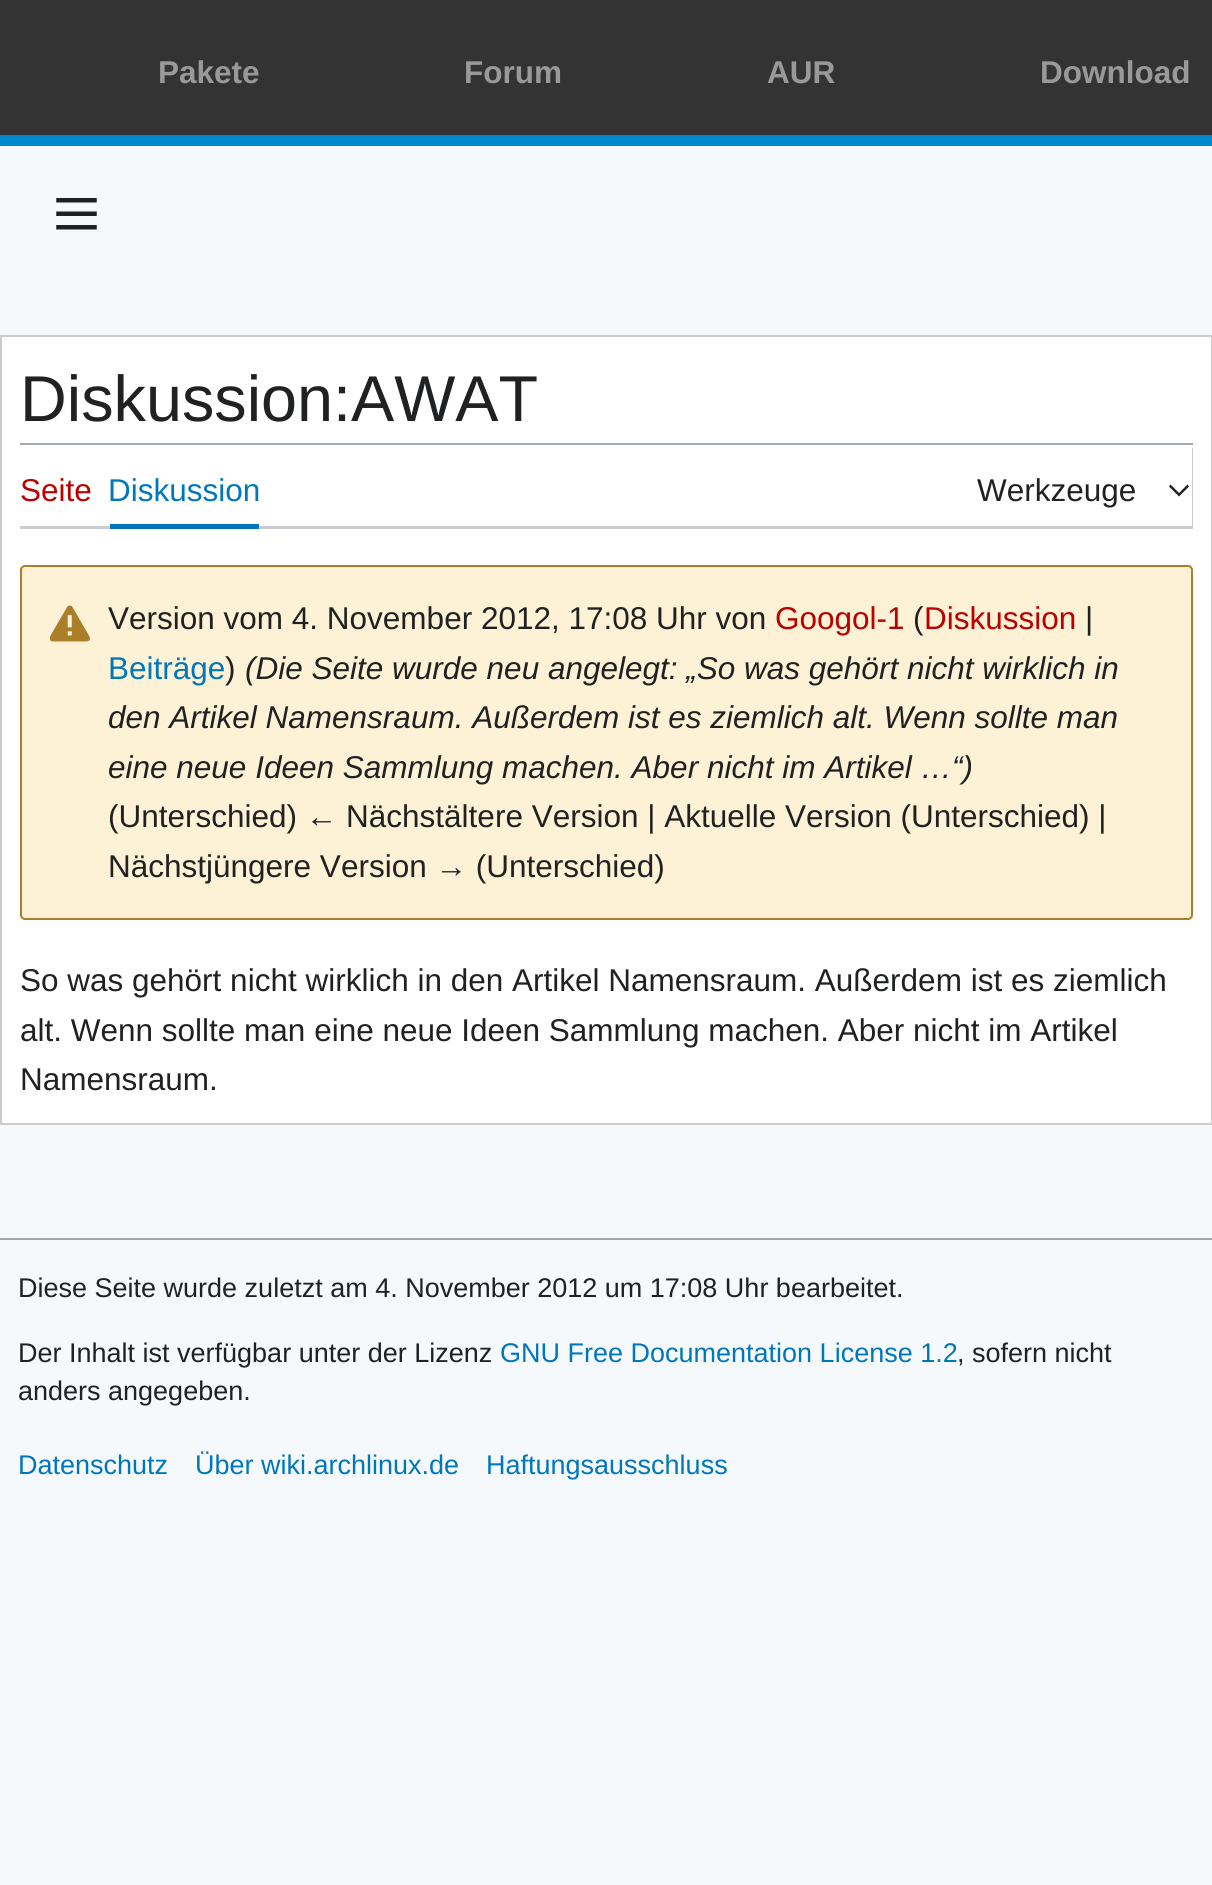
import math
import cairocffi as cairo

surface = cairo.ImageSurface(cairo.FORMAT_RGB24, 1212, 1885)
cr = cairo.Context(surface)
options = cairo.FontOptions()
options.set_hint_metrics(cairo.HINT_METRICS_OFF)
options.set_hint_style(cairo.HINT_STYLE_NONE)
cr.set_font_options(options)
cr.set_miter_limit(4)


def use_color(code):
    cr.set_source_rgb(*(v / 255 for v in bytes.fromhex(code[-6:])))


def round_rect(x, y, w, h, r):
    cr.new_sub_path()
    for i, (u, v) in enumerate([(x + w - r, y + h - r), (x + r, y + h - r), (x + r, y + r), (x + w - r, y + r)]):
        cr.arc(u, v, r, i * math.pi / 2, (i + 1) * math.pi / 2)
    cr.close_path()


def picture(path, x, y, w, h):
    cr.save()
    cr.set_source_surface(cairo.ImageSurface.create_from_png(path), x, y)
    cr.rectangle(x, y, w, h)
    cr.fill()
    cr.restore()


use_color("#f6f9fc")
cr.paint()
use_color("#333333")
cr.rectangle(0, 0, 1212, 135)
cr.fill()
use_color("#0088cc")
cr.rectangle(0, 135, 1212, 11)
cr.fill()
cr.select_font_face("Liberation Sans", cairo.FONT_SLANT_NORMAL, cairo.FONT_WEIGHT_BOLD)
cr.set_font_size(31.5)
use_color("#999999")
cr.move_to(158, 83)
cr.show_text("Pakete")
cr.move_to(464, 83)
cr.show_text("Forum")
cr.move_to(767, 83)
cr.show_text("AUR")
cr.move_to(1040, 83)
cr.show_text("Download")
picture("img1.png", 56, 198, 41, 32)
use_color("#ffffff")
cr.rectangle(1, 336, 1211, 788)
cr.fill_preserve()
use_color("#cccccc")
cr.stroke()
cr.select_font_face("Liberation Sans")
cr.set_font_size(64.75)
use_color("#202122")
cr.move_to(20, 421)
cr.show_text("Diskussion:AWAT")
use_color("#a2a9b1")
cr.rectangle(20, 443, 1173, 2)
cr.fill()
use_color("#c8ccd1")
cr.new_path()
cr.move_to(20, 448)
cr.line_to(20, 529)
cr.line_to(1193, 529)
cr.line_to(1193, 448)
cr.line_to(1192, 448)
cr.line_to(1192, 526)
cr.line_to(20, 526)
cr.close_path()
cr.fill()
cr.set_font_size(31.5)
use_color("#bb0000")
cr.move_to(20, 501)
cr.show_text("Seite")
use_color("#0077bb")
cr.rectangle(110, 524, 149, 5)
cr.fill()
cr.move_to(108, 501)
cr.show_text("Diskussion")
use_color("#202122")
cr.move_to(977, 501)
cr.show_text("Werkzeuge")
cr.new_path()
cr.move_to(1187.5, 484.5)
cr.line_to(1179, 493)
cr.line_to(1170.5, 484.5)
cr.line_to(1169, 486.5)
cr.line_to(1179, 496.5)
cr.line_to(1189, 486.5)
cr.close_path()
cr.fill()
use_color("#fdf2d5")
round_rect(21, 566, 1171, 353, 4)
cr.fill_preserve()
use_color("#ab7f2a")
cr.stroke()
picture("img2.png", 50, 605, 40, 37)
use_color("#202122")
cr.move_to(108, 629)
cr.show_text("Version vom 4. November 2012, 17:08 Uhr von")
use_color("#bb0000")
cr.move_to(775, 629)
cr.show_text("Googol-1")
use_color("#202122")
cr.move_to(913, 629)
cr.show_text("(")
use_color("#bb0000")
cr.move_to(924, 629)
cr.show_text("Diskussion")
use_color("#202122")
cr.move_to(1085, 629)
cr.show_text("|")
use_color("#0077bb")
cr.move_to(108, 679)
cr.show_text("Beiträge")
use_color("#202122")
cr.move_to(225, 679)
cr.show_text(")")
cr.select_font_face("Liberation Sans", cairo.FONT_SLANT_ITALIC)
cr.move_to(245, 679)
cr.show_text("(Die Seite wurde neu angelegt: „So was gehört nicht wirklich in")
cr.move_to(108, 728)
cr.show_text("den Artikel Namensraum. Außerdem ist es ziemlich alt. Wenn sollte man")
cr.move_to(108, 778)
cr.show_text("eine neue Ideen Sammlung machen. Aber nicht im Artikel …“)")
cr.select_font_face("Liberation Sans")
cr.move_to(108, 827)
cr.show_text("(Unterschied) ← Nächstältere Version | Aktuelle Version (Unterschied) |")
cr.move_to(108, 877)
cr.show_text("Nächstjüngere Version → (Unterschied)")
cr.move_to(20, 991)
cr.show_text("So was gehört nicht wirklich in den Artikel Namensraum. Außerdem ist es ziemlich")
cr.move_to(20, 1041)
cr.show_text("alt. Wenn sollte man eine neue Ideen Sammlung machen. Aber nicht im Artikel")
cr.move_to(20, 1090)
cr.show_text("Namensraum.")
use_color("#a2a9b1")
cr.rectangle(0, 1238, 1212, 2)
cr.fill()
cr.set_font_size(27)
use_color("#202122")
cr.move_to(18, 1297)
cr.show_text("Diese Seite wurde zuletzt am 4. November 2012 um 17:08 Uhr bearbeitet.")
cr.move_to(18, 1362)
cr.show_text("Der Inhalt ist verfügbar unter der Lizenz")
use_color("#0077bb")
cr.move_to(500, 1362)
cr.show_text("GNU Free Documentation License 1.2")
use_color("#202122")
cr.move_to(957, 1362)
cr.show_text(", sofern nicht")
cr.move_to(18, 1400)
cr.show_text("anders angegeben.")
use_color("#0077bb")
cr.move_to(18, 1474)
cr.show_text("Datenschutz")
cr.move_to(195, 1474)
cr.show_text("Über wiki.archlinux.de")
cr.move_to(486, 1474)
cr.show_text("Haftungsausschluss")
surface.write_to_png("result.png")
